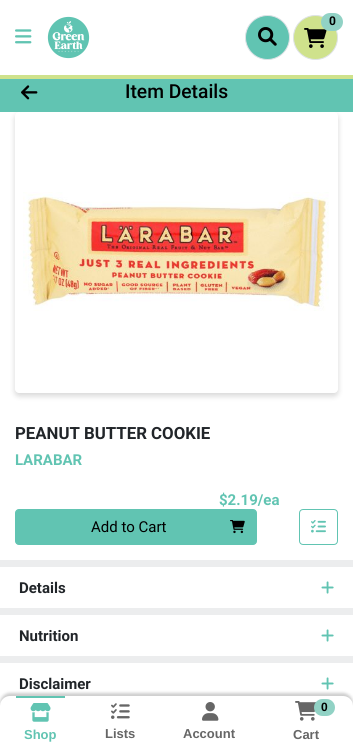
import math
import cairocffi as cairo

surface = cairo.ImageSurface(cairo.FORMAT_RGB24, 353, 749)
cr = cairo.Context(surface)
options = cairo.FontOptions()
options.set_hint_metrics(cairo.HINT_METRICS_OFF)
options.set_hint_style(cairo.HINT_STYLE_NONE)
cr.set_font_options(options)
cr.set_miter_limit(4)


def use_color(code):
    cr.set_source_rgb(*(v / 255 for v in bytes.fromhex(code[-6:])))


def round_rect(x, y, w, h, r):
    cr.new_sub_path()
    for i, (u, v) in enumerate([(x + w - r, y + h - r), (x + r, y + h - r), (x + r, y + r), (x + w - r, y + r)]):
        cr.arc(u, v, r, i * math.pi / 2, (i + 1) * math.pi / 2)
    cr.close_path()


def shadow(x, y, w, h, r, blur, alpha):
    cr.push_group_with_content(cairo.CONTENT_ALPHA)
    cr.set_operator(cairo.OPERATOR_SOURCE)
    for i in range(15, -16, -2):
        e = blur * i / 6
        if min(w, h) + 2 * e > 0:
            cr.set_source_rgba(0, 0, 0, alpha * math.erfc((i - 1) / 8.5) / 2)
            round_rect(x - e, y - e, w + 2 * e, h + 2 * e, max(0, min(r + e + blur * .6, min(w, h) / 2 + e)))
            cr.fill()
    cr.mask(cr.pop_group())


def picture(path, x, y, w, h):
    cr.save()
    cr.set_source_surface(cairo.ImageSurface.create_from_png(path), x, y)
    cr.rectangle(x, y, w, h)
    cr.fill()
    cr.restore()


use_color("#ffffff")
cr.paint()
use_color("#cfe28c")
cr.rectangle(0, 75, 353, 4)
cr.fill()
picture("img1.png", 47, 16, 43, 43)
use_color("#61c4b2")
cr.arc(267.5, 37.5, 22, 0, 2 * math.pi)
cr.fill_preserve()
use_color("#dee2e6")
cr.set_line_width(1)
cr.stroke()
picture("img2.png", 258, 27, 19, 19)
use_color("#cfe28c")
cr.arc(315.5, 37.5, 22, 0, 2 * math.pi)
cr.fill_preserve()
use_color("#dee2e6")
cr.stroke()
picture("img3.png", 304, 28, 23, 20)
use_color("#91d2c5")
round_rect(321, 13, 22, 18, 9)
cr.fill()
cr.select_font_face("Roboto", cairo.FONT_SLANT_NORMAL, cairo.FONT_WEIGHT_BOLD)
cr.set_font_size(12)
use_color("#000000")
cr.move_to(329, 25)
cr.show_text("0")
picture("img4.png", 15, 29, 17, 15)
use_color("#000000")
shadow(15, 115, 323, 281, 4, 3, 0.16)
use_color("#61c4b2")
cr.rectangle(0, 79, 353, 33)
cr.fill()
picture("img5.png", 21, 85, 17, 15)
cr.select_font_face("Roboto Medium")
cr.set_font_size(19.25)
use_color("#000000")
cr.move_to(125, 98)
cr.show_text("Item Details")
use_color("#ffffff")
round_rect(15, 112, 323, 281, 4)
cr.fill()
picture("img6.png", 23, 192, 306, 119)
cr.select_font_face("Roboto", cairo.FONT_SLANT_NORMAL, cairo.FONT_WEIGHT_BOLD)
cr.set_font_size(16.8)
use_color("#212529")
cr.move_to(15, 439)
cr.show_text("PEANUT BUTTER COOKIE")
cr.set_font_size(15)
use_color("#61c4b2")
cr.move_to(15, 465)
cr.show_text("LARABAR")
cr.move_to(219, 505)
cr.show_text("$2.19/ea")
round_rect(15.5, 509.5, 241, 35, 3.5)
cr.fill_preserve()
cr.stroke()
cr.select_font_face("Roboto")
use_color("#000000")
cr.move_to(91, 532)
cr.show_text("Add to Cart")
picture("img7.png", 230, 520, 15, 14)
round_rect(299.5, 509.5, 38, 35, 3.5)
use_color("#61c4b2")
cr.stroke()
picture("img8.png", 311, 520, 15, 13)
use_color("#ecedee")
cr.rectangle(0, 560, 353, 7)
cr.fill()
cr.select_font_face("Roboto", cairo.FONT_SLANT_NORMAL, cairo.FONT_WEIGHT_BOLD)
use_color("#212529")
cr.move_to(19, 593)
cr.show_text("Details")
picture("img9.png", 321, 581, 13, 13)
use_color("#ecedee")
cr.rectangle(0, 608, 353, 7)
cr.fill()
use_color("#212529")
cr.move_to(19, 641)
cr.show_text("Nutrition")
picture("img9.png", 321, 629, 13, 13)
use_color("#ecedee")
cr.rectangle(0, 656, 353, 50)
cr.fill()
use_color("#ffffff")
cr.rectangle(0, 663, 353, 41)
cr.fill()
use_color("#212529")
cr.move_to(19, 689)
cr.show_text("Disclaimer")
picture("img9.png", 321, 677, 13, 13)
use_color("#000000")
shadow(0, 693, 353, 53, 10, 1.5, 0.2)
use_color("#ffffff")
cr.new_path()
cr.move_to(10, 696)
cr.line_to(343, 696)
cr.curve_to(348.5, 696, 353, 700.5, 353, 706)
cr.line_to(353, 749)
cr.line_to(0, 749)
cr.line_to(0, 706)
cr.curve_to(0, 700.5, 4.5, 696, 10, 696)
cr.close_path()
cr.fill()
use_color("#61c4b2")
cr.rectangle(16, 696, 49, 2)
cr.fill()
picture("img10.png", 30, 703, 21, 19)
cr.select_font_face("Liberation Sans", cairo.FONT_SLANT_NORMAL, cairo.FONT_WEIGHT_BOLD)
cr.set_font_size(13)
cr.move_to(24, 739)
cr.show_text("Shop")
picture("img11.png", 111, 703, 19, 16)
use_color("#666666")
cr.move_to(105, 738)
cr.show_text("Lists")
picture("img12.png", 202, 702, 17, 19)
cr.move_to(183, 738)
cr.show_text("Account")
picture("img13.png", 295, 701, 21, 20)
use_color("#91d2c5")
round_rect(314, 699, 21, 17, 8.5)
cr.fill()
cr.set_font_size(12)
use_color("#000000")
cr.move_to(321, 711)
cr.show_text("0")
cr.set_font_size(13)
use_color("#666666")
cr.move_to(293, 739)
cr.show_text("Cart")
surface.write_to_png("result.png")
